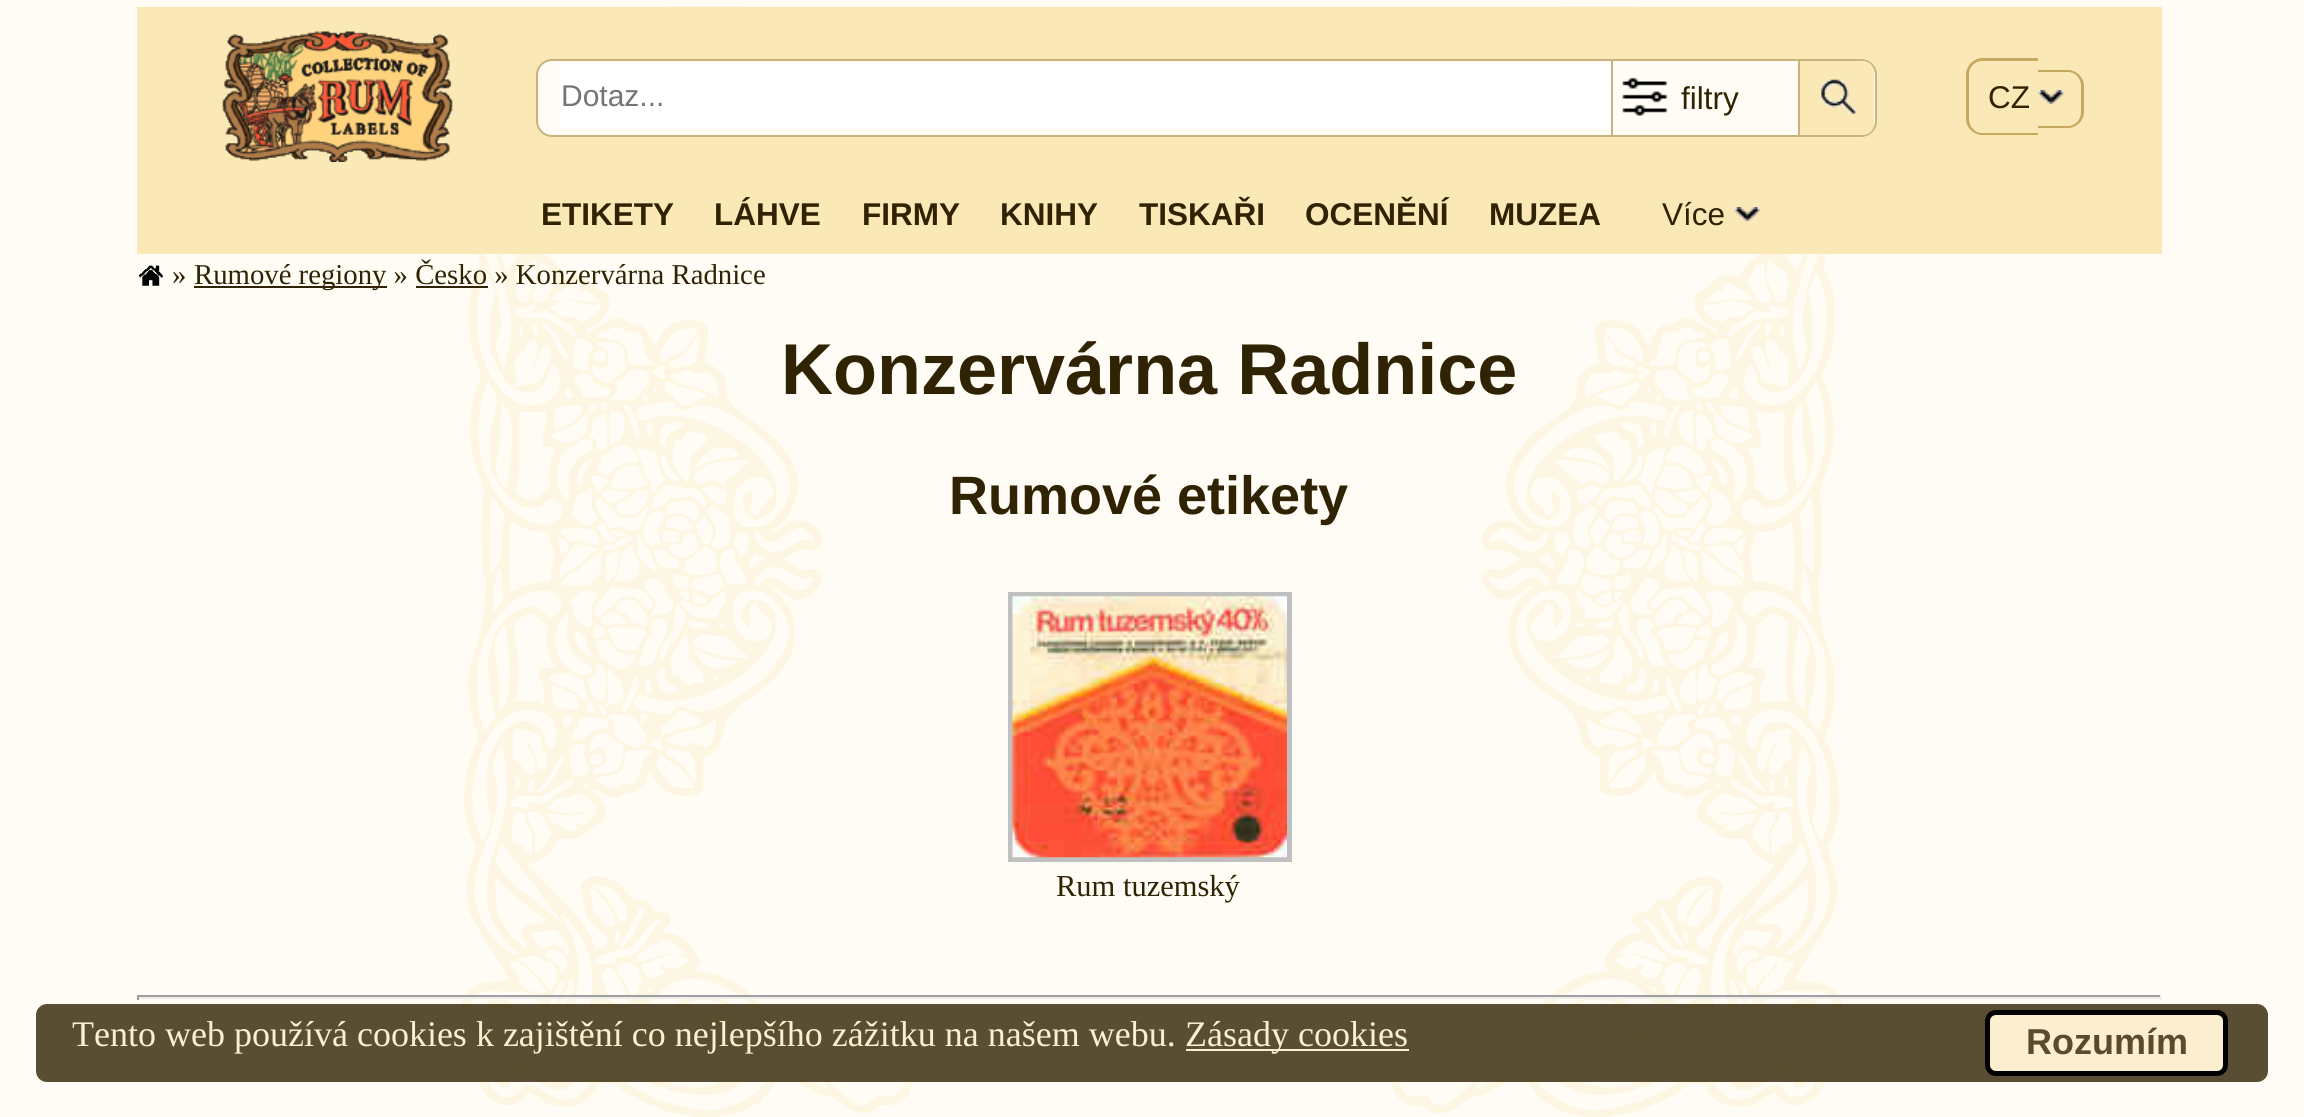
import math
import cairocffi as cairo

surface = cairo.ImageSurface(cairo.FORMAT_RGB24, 2304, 1117)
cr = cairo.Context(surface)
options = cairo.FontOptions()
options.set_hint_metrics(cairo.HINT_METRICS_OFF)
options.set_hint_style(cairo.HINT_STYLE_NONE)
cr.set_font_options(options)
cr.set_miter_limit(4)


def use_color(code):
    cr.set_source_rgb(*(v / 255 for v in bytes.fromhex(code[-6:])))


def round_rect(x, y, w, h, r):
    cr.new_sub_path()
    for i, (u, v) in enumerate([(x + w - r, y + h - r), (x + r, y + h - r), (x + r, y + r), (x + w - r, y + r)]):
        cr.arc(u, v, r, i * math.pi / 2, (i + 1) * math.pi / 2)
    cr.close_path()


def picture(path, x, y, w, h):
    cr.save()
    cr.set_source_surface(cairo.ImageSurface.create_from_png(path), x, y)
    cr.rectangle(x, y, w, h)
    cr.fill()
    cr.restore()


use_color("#fefcf5")
cr.paint()
picture("img1.png", 462, 6, 1380, 1111)
use_color("#fbe8b7")
cr.rectangle(137, 7, 2025, 247)
cr.fill()
picture("img2.png", 222, 31, 231, 131)
use_color("#fefcf5")
round_rect(536, 59, 1341, 78, 16)
cr.fill()
round_rect(537, 60, 1339, 76, 15)
cr.set_source_rgba(0.569, 0.416, 0.031, 0.5)
cr.stroke()
use_color("#ffffff")
cr.rectangle(560, 65, 1051, 63)
cr.fill()
cr.select_font_face("Liberation Sans")
cr.set_font_size(30)
use_color("#757575")
cr.move_to(561, 106)
cr.show_text("Dotaz...")
use_color("#c8b37f")
cr.rectangle(1798, 61, 2, 74)
cr.fill()
cr.rectangle(1611, 61, 2, 74)
cr.fill()
picture("img3.png", 1622, 77, 46, 39)
cr.set_font_size(31.5)
use_color("#302303")
cr.move_to(1681, 109)
cr.show_text("filtry")
use_color("#fbe8b7")
cr.new_path()
cr.move_to(1800, 61)
cr.line_to(1863, 61)
cr.curve_to(1869, 61, 1874, 66, 1874, 72)
cr.line_to(1874, 124)
cr.curve_to(1874, 130, 1869, 135, 1863, 135)
cr.line_to(1800, 135)
cr.close_path()
cr.fill()
picture("img4.png", 1821, 79, 35, 35)
use_color("#c6a960")
cr.set_fill_rule(cairo.FILL_RULE_EVEN_ODD)
cr.new_path()
cr.move_to(1982, 58)
cr.line_to(2038, 58)
cr.line_to(2038, 135)
cr.line_to(1982, 135)
cr.curve_to(1974, 135, 1966, 128, 1966, 119)
cr.line_to(1966, 74)
cr.curve_to(1966, 66, 1974, 58, 1982, 58)
cr.close_path()
cr.move_to(1982, 61)
cr.line_to(2038, 61)
cr.line_to(2038, 133)
cr.line_to(1982, 133)
cr.curve_to(1975, 133, 1969, 127, 1969, 119)
cr.line_to(1969, 74)
cr.curve_to(1969, 67, 1975, 61, 1982, 61)
cr.close_path()
cr.fill()
use_color("#302303")
cr.move_to(1988, 108)
cr.show_text("CZ")
use_color("#c6a960")
cr.new_path()
cr.move_to(2038, 70)
cr.line_to(2068, 70)
cr.curve_to(2076, 70, 2084, 77, 2084, 86)
cr.line_to(2084, 112)
cr.curve_to(2084, 121, 2076, 128, 2068, 128)
cr.line_to(2038, 128)
cr.close_path()
cr.move_to(2038, 72)
cr.line_to(2068, 72)
cr.curve_to(2075, 72, 2081, 78, 2081, 86)
cr.line_to(2081, 112)
cr.curve_to(2081, 120, 2075, 126, 2068, 126)
cr.line_to(2038, 126)
cr.close_path()
cr.fill()
picture("img5.png", 2038, 90, 26, 15)
cr.select_font_face("Liberation Sans", cairo.FONT_SLANT_NORMAL, cairo.FONT_WEIGHT_BOLD)
use_color("#302303")
cr.move_to(541, 225)
cr.show_text("ETIKETY")
cr.move_to(714, 225)
cr.show_text("LÁHVE")
cr.move_to(862, 225)
cr.show_text("FIRMY")
cr.move_to(1000, 225)
cr.show_text("KNIHY")
cr.move_to(1139, 225)
cr.show_text("TISKAŘI")
cr.move_to(1305, 225)
cr.show_text("OCENĚNÍ")
cr.move_to(1489, 225)
cr.show_text("MUZEA")
cr.select_font_face("Liberation Sans")
cr.move_to(1662, 225)
cr.show_text("Více")
picture("img6.png", 1734, 207, 26, 15)
picture("img7.png", 139, 265, 24, 21)
cr.select_font_face("Liberation Serif")
cr.set_font_size(28.75)
cr.move_to(172, 284)
cr.show_text("»")
cr.rectangle(194, 286, 193, 2)
cr.fill()
cr.move_to(194, 284)
cr.show_text("Rumové regiony » Česko » Konzervárna Radnice")
cr.rectangle(416, 286, 72, 2)
cr.fill()
cr.select_font_face("Liberation Sans", cairo.FONT_SLANT_NORMAL, cairo.FONT_WEIGHT_BOLD)
cr.set_font_size(72)
cr.move_to(781, 394)
cr.show_text("Konzervárna Radnice")
cr.set_font_size(54)
cr.move_to(949, 514)
cr.show_text("Rumové etikety")
cr.rectangle(1010.5, 594.5, 279, 265)
use_color("#c0c0c0")
cr.set_line_width(5)
cr.stroke()
picture("img8.png", 1012, 596, 275, 262)
cr.select_font_face("Liberation Serif")
cr.set_font_size(30.5)
use_color("#302303")
cr.move_to(1056, 896)
cr.show_text("Rum tuzemský")
use_color("#9f9f9f")
cr.rectangle(137, 995, 2025, 2)
cr.fill()
use_color("#eeeeee")
cr.rectangle(2160, 995, 2, 5)
cr.fill()
cr.rectangle(137, 997, 2025, 2)
cr.fill()
use_color("#9f9f9f")
cr.rectangle(137, 995, 2, 5)
cr.fill()
cr.set_source_rgba(0.188, 0.137, 0.012, 0.8)
round_rect(36, 1004, 2232, 78, 11)
cr.fill()
cr.set_font_size(36)
use_color("#fcefcf")
cr.move_to(72, 1046)
cr.show_text("Tento web používá cookies k zajištění co nejlepšího zážitku na našem webu.")
cr.rectangle(1186, 1049, 223, 2)
cr.fill()
cr.move_to(1185, 1046)
cr.show_text("Zásady cookies")
round_rect(1987.5, 1012.5, 238, 61, 8.5)
cr.fill_preserve()
use_color("#000000")
cr.stroke()
cr.select_font_face("Liberation Sans", cairo.FONT_SLANT_NORMAL, cairo.FONT_WEIGHT_BOLD)
use_color("#594c2c")
cr.move_to(2026, 1054)
cr.show_text("Rozumím")
surface.write_to_png("result.png")
